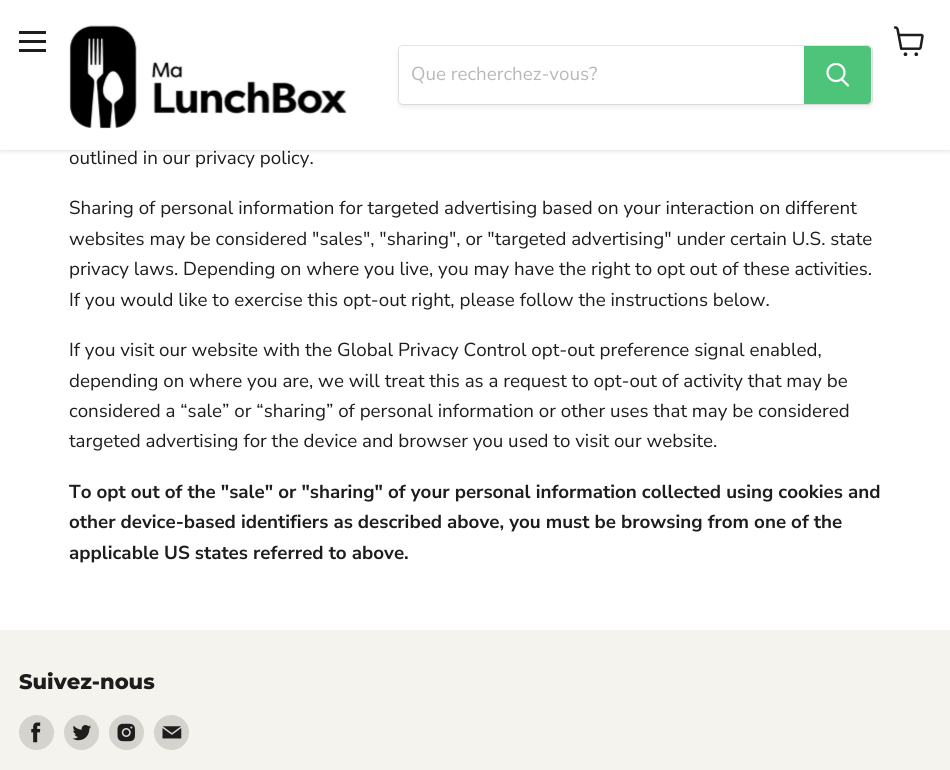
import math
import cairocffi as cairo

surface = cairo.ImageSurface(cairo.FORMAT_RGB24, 950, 770)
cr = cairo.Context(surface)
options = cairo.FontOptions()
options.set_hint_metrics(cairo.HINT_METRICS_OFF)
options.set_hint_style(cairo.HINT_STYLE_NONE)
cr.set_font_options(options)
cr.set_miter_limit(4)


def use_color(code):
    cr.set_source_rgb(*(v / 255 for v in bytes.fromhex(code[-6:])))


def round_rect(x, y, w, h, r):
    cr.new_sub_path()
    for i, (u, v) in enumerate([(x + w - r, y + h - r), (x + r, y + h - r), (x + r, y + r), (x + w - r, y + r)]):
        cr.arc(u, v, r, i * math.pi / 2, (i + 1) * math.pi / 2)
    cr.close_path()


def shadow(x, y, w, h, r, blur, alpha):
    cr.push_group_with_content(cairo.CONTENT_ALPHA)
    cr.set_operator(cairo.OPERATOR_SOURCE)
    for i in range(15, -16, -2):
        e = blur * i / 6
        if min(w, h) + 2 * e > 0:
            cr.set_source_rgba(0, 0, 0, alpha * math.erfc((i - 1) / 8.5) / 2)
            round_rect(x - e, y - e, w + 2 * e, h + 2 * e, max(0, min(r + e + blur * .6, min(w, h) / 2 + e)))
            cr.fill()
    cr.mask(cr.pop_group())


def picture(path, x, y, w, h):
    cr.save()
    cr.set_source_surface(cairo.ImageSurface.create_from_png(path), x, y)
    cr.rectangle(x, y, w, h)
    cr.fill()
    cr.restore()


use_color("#ffffff")
cr.paint()
use_color("#808080")
shadow(0, 1, 950, 150, 0, 2.5, 0.25)
use_color("#ffffff")
cr.rectangle(0, 0, 950, 150)
cr.fill()
use_color("#1d1d1d")
cr.rectangle(19, 31, 27, 3)
cr.fill()
cr.rectangle(19, 40, 27, 3)
cr.fill()
cr.rectangle(19, 49, 27, 3)
cr.fill()
picture("img1.png", 894, 26, 30, 30)
picture("img2.png", 69, 25, 278, 104)
use_color("#808080")
shadow(398, 48, 475, 60, 5, 2, 0.11)
round_rect(398.5, 45.5, 474, 59, 4.5)
cr.set_source_rgba(0.502, 0.502, 0.502, 0.2)
cr.set_line_width(1)
cr.stroke()
use_color("#ffffff")
cr.new_path()
cr.move_to(403, 46)
cr.line_to(804, 46)
cr.line_to(804, 104)
cr.line_to(403, 104)
cr.curve_to(401, 104, 399, 102, 399, 100)
cr.line_to(399, 50)
cr.curve_to(399, 48, 401, 46, 403, 46)
cr.close_path()
cr.fill()
cr.select_font_face("Nunito Sans")
cr.set_font_size(18.75)
use_color("#b8b8b8")
cr.move_to(411, 80)
cr.show_text("Que recherchez-vous?")
use_color("#4ec47b")
cr.new_path()
cr.move_to(804.5, 46.5)
cr.line_to(867, 46.5)
cr.curve_to(869, 46.5, 870.5, 48, 870.5, 50)
cr.line_to(870.5, 100)
cr.curve_to(870.5, 102, 869, 103.5, 867, 103.5)
cr.line_to(804.5, 103.5)
cr.close_path()
cr.fill_preserve()
cr.stroke()
cr.new_path()
cr.move_to(848, 85.5)
cr.line_to(842, 79.5)
use_color("#ffffff")
cr.set_line_width(2.2)
cr.set_line_cap(cairo.LINE_CAP_ROUND)
cr.stroke()
cr.arc(836, 72.5, 8.5, 0, 2 * math.pi)
cr.set_line_cap(cairo.LINE_CAP_BUTT)
cr.stroke()
use_color("#1d1d1d")
cr.move_to(69, 164)
cr.show_text("outlined in our privacy policy.")
cr.move_to(69, 214)
cr.show_text("Sharing of personal information for targeted advertising based on your interaction on different")
cr.move_to(69, 245)
cr.show_text("websites may be considered \"sales\", \"sharing\", or \"targeted advertising\" under certain U.S. state")
cr.move_to(69, 275)
cr.show_text("privacy laws. Depending on where you live, you may have the right to opt out of these activities.")
cr.move_to(69, 306)
cr.show_text("If you would like to exercise this opt-out right, please follow the instructions below.")
cr.move_to(69, 356)
cr.show_text("If you visit our website with the Global Privacy Control opt-out preference signal enabled,")
cr.move_to(69, 387)
cr.show_text("depending on where you are, we will treat this as a request to opt-out of activity that may be")
cr.move_to(69, 417)
cr.show_text("considered a “sale” or “sharing” of personal information or other uses that may be considered")
cr.move_to(69, 447)
cr.show_text("targeted advertising for the device and browser you used to visit our website.")
cr.select_font_face("Nunito Sans", cairo.FONT_SLANT_NORMAL, cairo.FONT_WEIGHT_BOLD)
cr.move_to(69, 498)
cr.show_text("To opt out of the \"sale\" or \"sharing\" of your personal information collected using cookies and")
cr.move_to(69, 528)
cr.show_text("other device-based identifiers as described above, you must be browsing from one of the")
cr.move_to(69, 559)
cr.show_text("applicable US states referred to above.")
use_color("#f5f3ed")
cr.rectangle(0, 630, 950, 140)
cr.fill()
cr.select_font_face("Montserrat ExtraBold")
cr.set_font_size(21)
use_color("#1d1d1d")
cr.move_to(19, 689)
cr.show_text("Suivez-nous")
use_color("#d5d3ce")
cr.new_path()
cr.arc(36.5, 732.5, 17.5, 0, 2 * math.pi)
cr.fill()
picture("img3.png", 31, 722, 10, 21)
cr.arc(81.5, 732.5, 17.5, 0, 2 * math.pi)
cr.fill()
picture("img4.png", 72, 725, 19, 16)
cr.arc(126.5, 732.5, 17.5, 0, 2 * math.pi)
cr.fill()
picture("img5.png", 117, 723, 18, 19)
cr.arc(171.5, 732.5, 17.5, 0, 2 * math.pi)
cr.fill()
picture("img6.png", 162, 726, 20, 13)
surface.write_to_png("result.png")
